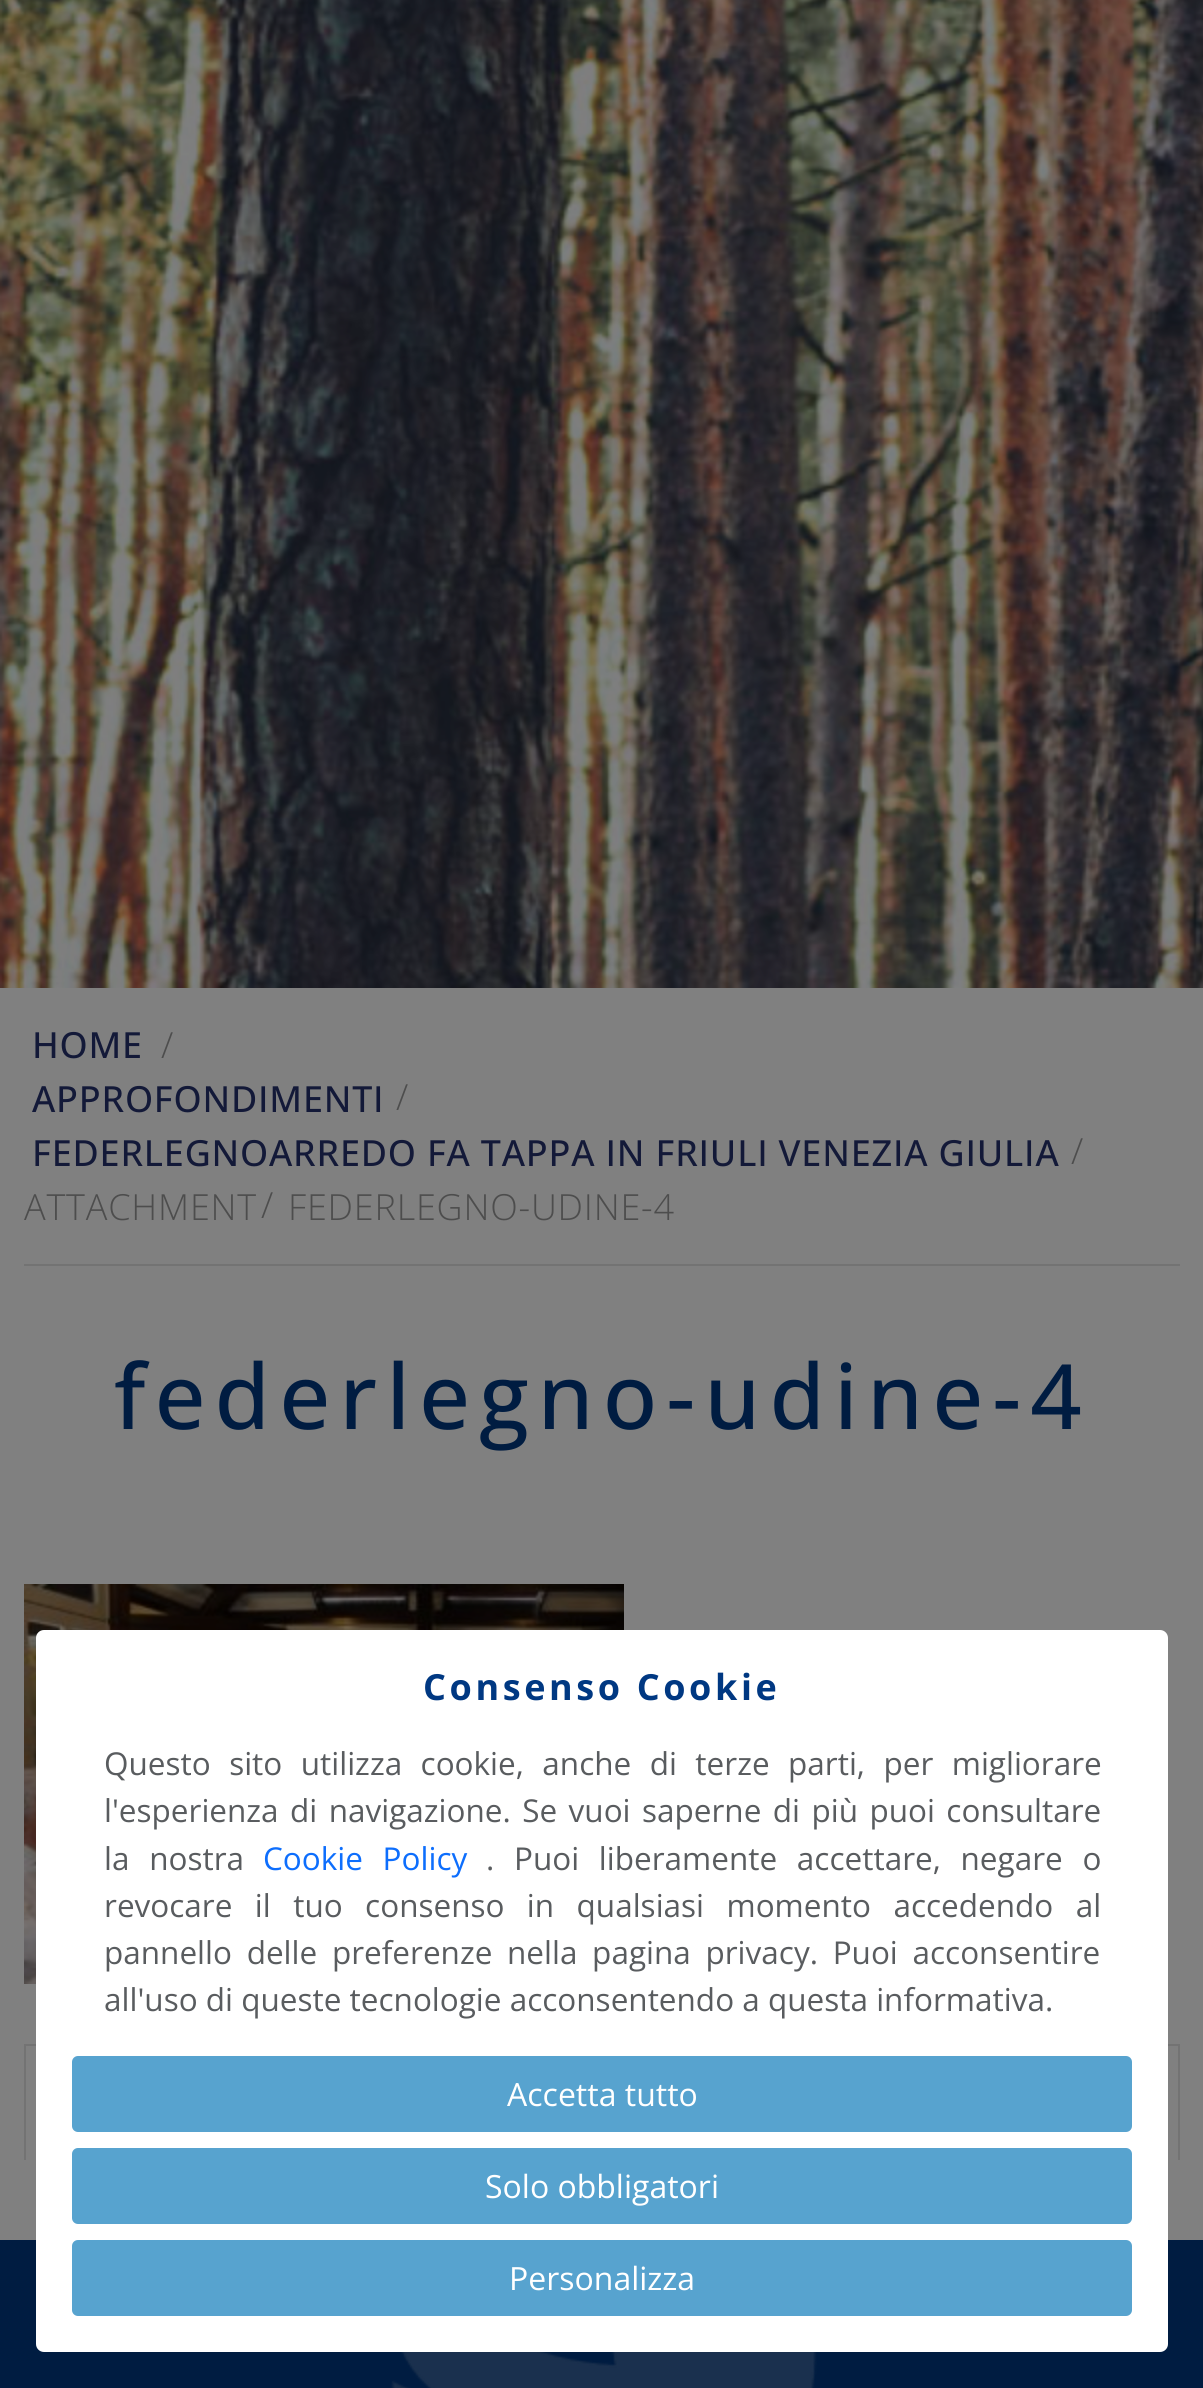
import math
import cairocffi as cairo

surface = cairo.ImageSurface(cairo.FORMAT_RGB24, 1203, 2388)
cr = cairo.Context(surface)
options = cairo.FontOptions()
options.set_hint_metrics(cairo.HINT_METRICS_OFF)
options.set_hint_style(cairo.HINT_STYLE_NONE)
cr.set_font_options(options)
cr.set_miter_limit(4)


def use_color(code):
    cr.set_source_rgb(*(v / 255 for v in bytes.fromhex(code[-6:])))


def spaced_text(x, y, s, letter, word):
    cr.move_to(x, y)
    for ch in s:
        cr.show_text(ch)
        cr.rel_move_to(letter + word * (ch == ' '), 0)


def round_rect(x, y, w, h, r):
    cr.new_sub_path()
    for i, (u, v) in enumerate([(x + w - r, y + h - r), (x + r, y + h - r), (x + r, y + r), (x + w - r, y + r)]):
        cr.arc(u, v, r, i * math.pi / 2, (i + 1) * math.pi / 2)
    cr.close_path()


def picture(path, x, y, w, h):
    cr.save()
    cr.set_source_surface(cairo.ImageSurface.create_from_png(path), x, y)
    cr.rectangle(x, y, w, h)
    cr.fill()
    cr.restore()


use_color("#808080")
cr.paint()
picture("img1.png", 0, 0, 1203, 988)
use_color("#737373")
cr.rectangle(24, 1264, 1156, 2)
cr.fill()
cr.select_font_face("Open Sans Medium")
cr.set_font_size(36)
use_color("#131938")
spaced_text(32, 1058, "HOME", 0.8, 0)
cr.select_font_face("Open Sans Light")
use_color("#4d4d4d")
spaced_text(161, 1058, "/", 0.8, 0)
cr.select_font_face("Open Sans Medium")
use_color("#131938")
spaced_text(32, 1112, "APPROFONDIMENTI", 0.8, 0)
cr.select_font_face("Open Sans Light")
use_color("#4d4d4d")
spaced_text(396, 1110, "/", 0.8, 0)
cr.select_font_face("Open Sans Medium")
use_color("#131938")
spaced_text(32, 1166, "FEDERLEGNOARREDO FA TAPPA IN FRIULI VENEZIA GIULIA", 0.8, 0)
cr.select_font_face("Open Sans Light")
use_color("#4d4d4d")
spaced_text(1071, 1164, "/", 0.8, 0)
spaced_text(24, 1220, "ATTACHMENT", 0.8, 0)
spaced_text(261, 1218, "/", 0.8, 0)
spaced_text(288, 1220, "FEDERLEGNO-UDINE-4", 0.8, 0)
cr.select_font_face("Open Sans Medium")
cr.set_font_size(90)
use_color("#001c41")
spaced_text(114, 1429, "federlegno-udine-4", 9, 0)
picture("img2.png", 24, 1584, 600, 400)
use_color("#737373")
cr.rectangle(24, 2044, 1156, 2)
cr.fill()
cr.rectangle(1178, 2044, 2, 116)
cr.fill()
cr.rectangle(24, 2044, 2, 116)
cr.fill()
use_color("#001c41")
cr.rectangle(0, 2240, 1203, 148)
cr.fill()
picture("img3.png", 391, 2352, 426, 36)
use_color("#ffffff")
round_rect(36, 1630, 1132, 722, 8)
cr.fill()
cr.select_font_face("Open Sans", cairo.FONT_SLANT_NORMAL, cairo.FONT_WEIGHT_BOLD)
cr.set_font_size(36)
use_color("#003882")
spaced_text(423, 1700, "Consenso Cookie", 3.6, 0)
cr.select_font_face("Open Sans")
cr.set_font_size(31.5)
use_color("#595c5f")
spaced_text(104, 1775, "Questo sito utilizza cookie, anche di terze parti, per migliorare", 0, 10.25)
spaced_text(104, 1822, "l'esperienza di navigazione. Se vuoi saperne di più puoi consultare", 0, 3.25)
spaced_text(104, 1870, "la nostra", 0, 11.5)
use_color("#0d6efd")
spaced_text(263, 1870, "Cookie Policy", 0, 11.5)
use_color("#595c5f")
spaced_text(486, 1870, ". Puoi liberamente accettare, negare o", 0, 11.5)
spaced_text(104, 1917, "revocare il tuo consenso in qualsiasi momento accedendo al", 0, 14.25)
spaced_text(104, 1964, "pannello delle preferenze nella pagina privacy. Puoi acconsentire", 0, 6.5)
cr.move_to(104, 2011)
cr.show_text("all'uso di queste tecnologie acconsentendo a questa informativa.")
use_color("#57a3cf")
round_rect(73, 2057, 1058, 74, 5)
cr.fill_preserve()
cr.stroke()
cr.set_font_size(32)
use_color("#ffffff")
cr.move_to(507, 2106)
cr.show_text("Accetta tutto")
use_color("#57a3cf")
round_rect(73, 2149, 1058, 74, 5)
cr.fill_preserve()
cr.stroke()
use_color("#ffffff")
cr.move_to(485, 2198)
cr.show_text("Solo obbligatori")
use_color("#57a3cf")
round_rect(73, 2241, 1058, 74, 5)
cr.fill_preserve()
cr.stroke()
use_color("#ffffff")
cr.move_to(509, 2290)
cr.show_text("Personalizza")
surface.write_to_png("result.png")
